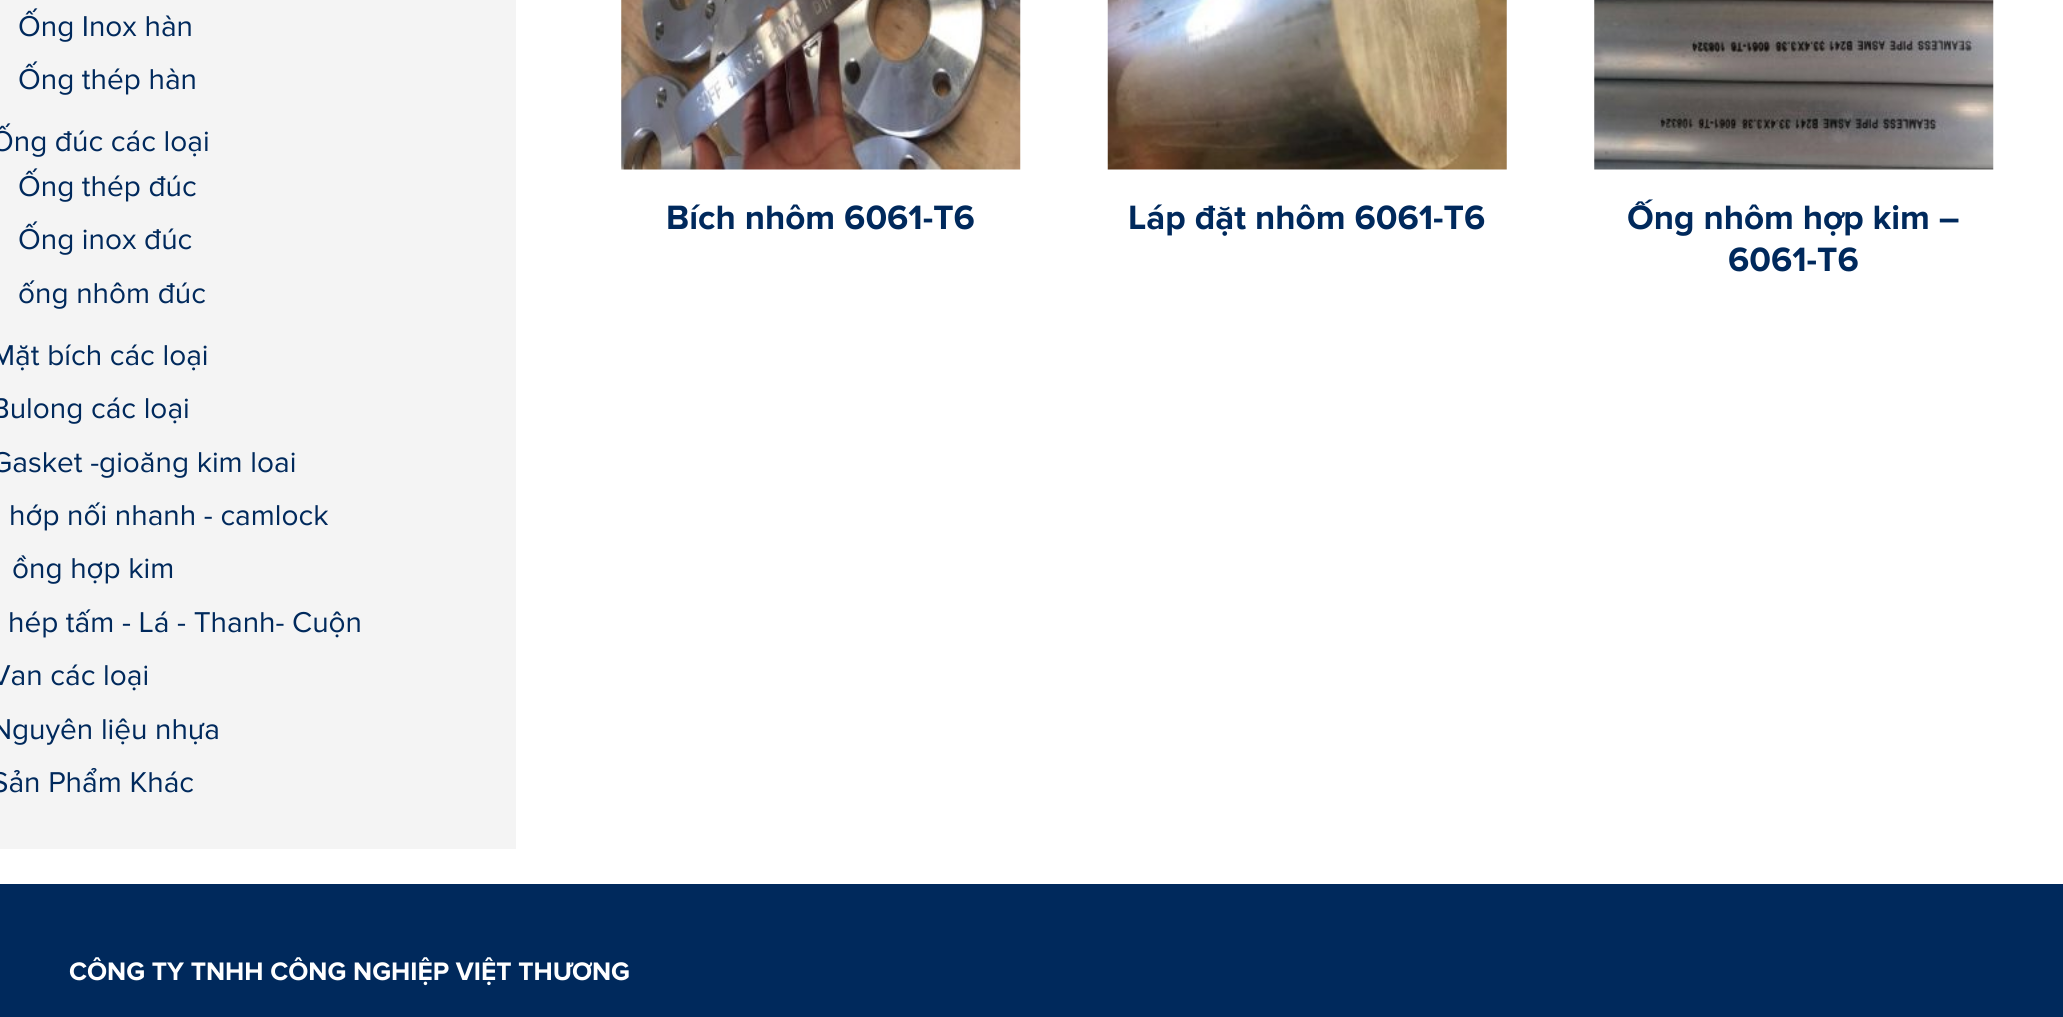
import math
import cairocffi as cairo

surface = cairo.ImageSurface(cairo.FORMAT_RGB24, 2063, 1017)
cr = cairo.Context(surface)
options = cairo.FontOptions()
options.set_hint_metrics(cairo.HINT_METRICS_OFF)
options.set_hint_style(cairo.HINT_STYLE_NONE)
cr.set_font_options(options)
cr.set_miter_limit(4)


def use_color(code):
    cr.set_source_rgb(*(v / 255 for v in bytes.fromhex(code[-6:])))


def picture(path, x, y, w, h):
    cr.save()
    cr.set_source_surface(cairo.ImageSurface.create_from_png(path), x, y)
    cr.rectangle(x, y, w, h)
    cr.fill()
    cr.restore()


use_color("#ffffff")
cr.paint()
use_color("#f4f4f4")
cr.rectangle(0, 0, 516, 849)
cr.fill()
cr.select_font_face("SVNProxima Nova")
cr.set_font_size(29.75)
use_color("#00295c")
cr.move_to(18, 36)
cr.show_text("Ống Inox hàn")
cr.move_to(18, 89)
cr.show_text("Ống thép hàn")
cr.move_to(-9, 151)
cr.show_text("Ống đúc các loại")
cr.move_to(18, 196)
cr.show_text("Ống thép đúc")
cr.move_to(18, 249)
cr.show_text("Ống inox đúc")
cr.move_to(18, 303)
cr.show_text("ống nhôm đúc")
cr.move_to(-9, 365)
cr.show_text("Mặt bích các loại")
cr.move_to(-9, 418)
cr.show_text("Bulong các loại")
cr.move_to(-9, 472)
cr.show_text("Gasket -gioăng kim loai")
cr.move_to(9, 525)
cr.show_text("hớp nối nhanh - camlock")
cr.move_to(12, 578)
cr.show_text("ồng hợp kim")
cr.move_to(8, 632)
cr.show_text("hép tấm - Lá - Thanh- Cuộn")
cr.move_to(-9, 685)
cr.show_text("Van các loại")
cr.move_to(-9, 739)
cr.show_text("Nguyên liệu nhựa")
cr.move_to(-9, 792)
cr.show_text("Sản Phẩm Khác")
picture("img1.png", 621, 0, 400, 170)
cr.select_font_face("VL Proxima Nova", cairo.FONT_SLANT_NORMAL, cairo.FONT_WEIGHT_BOLD)
cr.set_font_size(35)
cr.move_to(666, 229)
cr.show_text("Bích nhôm 6061-T6")
picture("img2.png", 1107, 0, 400, 170)
cr.move_to(1128, 229)
cr.show_text("Láp đặt nhôm 6061-T6")
picture("img3.png", 1594, 0, 400, 170)
cr.move_to(1627, 229)
cr.show_text("Ống nhôm hợp kim –")
cr.move_to(1728, 271)
cr.show_text("6061-T6")
cr.rectangle(0, 884, 2063, 133)
cr.fill()
cr.set_font_size(26.25)
use_color("#ffffff")
cr.move_to(69, 980)
cr.show_text("CÔNG TY TNHH CÔNG NGHIỆP VIỆT THƯƠNG")
surface.write_to_png("result.png")
